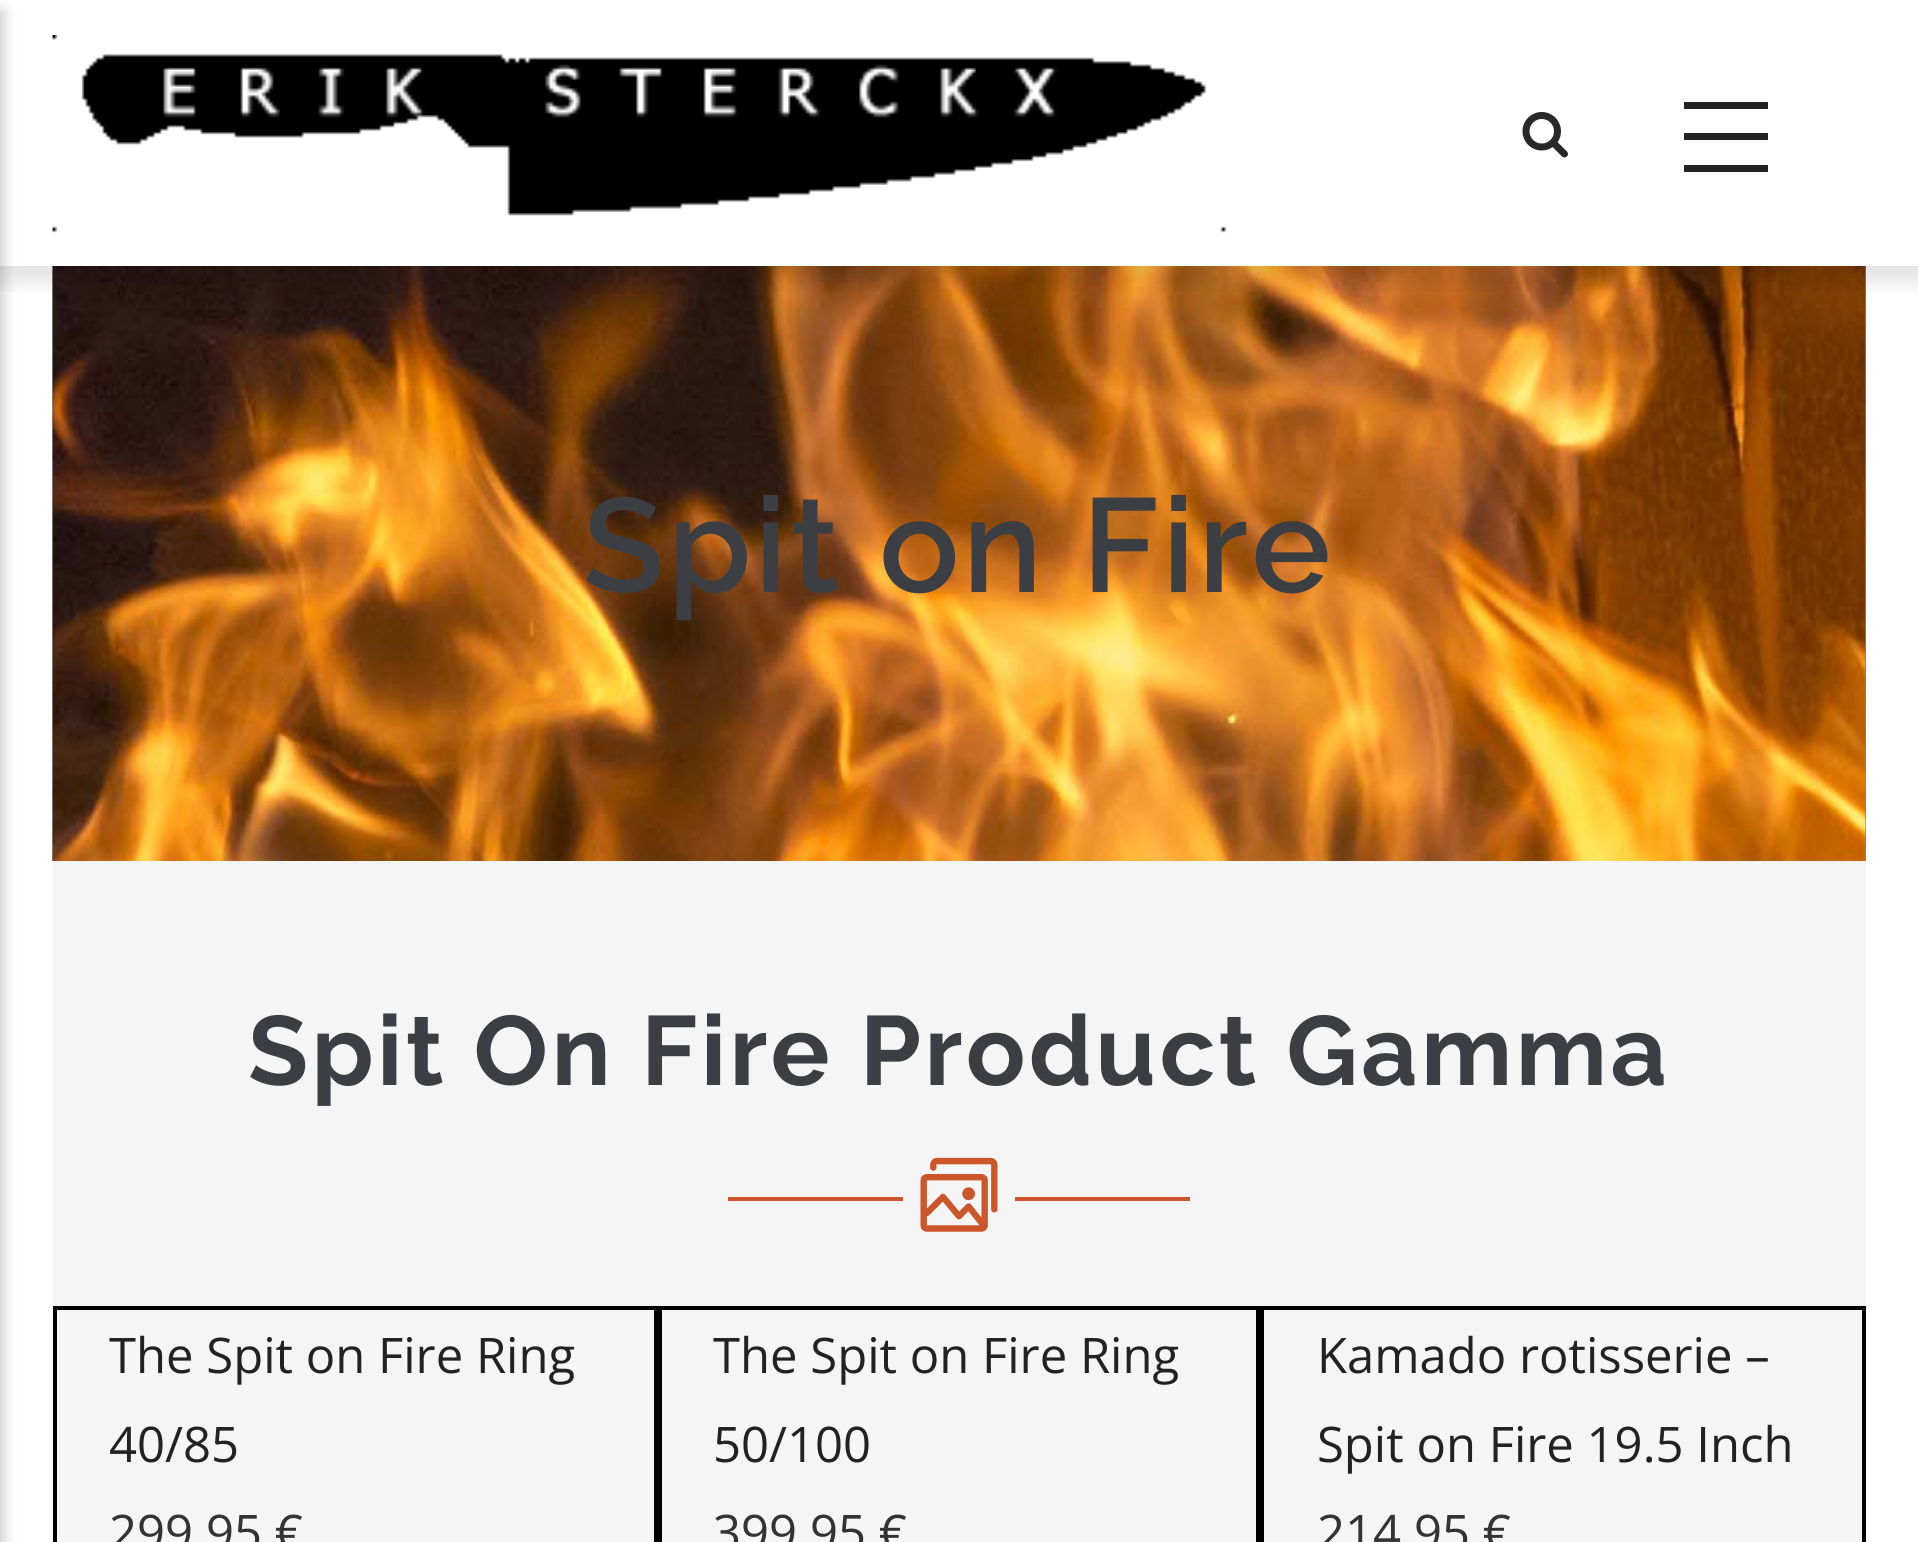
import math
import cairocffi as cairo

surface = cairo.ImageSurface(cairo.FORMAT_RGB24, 1918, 1542)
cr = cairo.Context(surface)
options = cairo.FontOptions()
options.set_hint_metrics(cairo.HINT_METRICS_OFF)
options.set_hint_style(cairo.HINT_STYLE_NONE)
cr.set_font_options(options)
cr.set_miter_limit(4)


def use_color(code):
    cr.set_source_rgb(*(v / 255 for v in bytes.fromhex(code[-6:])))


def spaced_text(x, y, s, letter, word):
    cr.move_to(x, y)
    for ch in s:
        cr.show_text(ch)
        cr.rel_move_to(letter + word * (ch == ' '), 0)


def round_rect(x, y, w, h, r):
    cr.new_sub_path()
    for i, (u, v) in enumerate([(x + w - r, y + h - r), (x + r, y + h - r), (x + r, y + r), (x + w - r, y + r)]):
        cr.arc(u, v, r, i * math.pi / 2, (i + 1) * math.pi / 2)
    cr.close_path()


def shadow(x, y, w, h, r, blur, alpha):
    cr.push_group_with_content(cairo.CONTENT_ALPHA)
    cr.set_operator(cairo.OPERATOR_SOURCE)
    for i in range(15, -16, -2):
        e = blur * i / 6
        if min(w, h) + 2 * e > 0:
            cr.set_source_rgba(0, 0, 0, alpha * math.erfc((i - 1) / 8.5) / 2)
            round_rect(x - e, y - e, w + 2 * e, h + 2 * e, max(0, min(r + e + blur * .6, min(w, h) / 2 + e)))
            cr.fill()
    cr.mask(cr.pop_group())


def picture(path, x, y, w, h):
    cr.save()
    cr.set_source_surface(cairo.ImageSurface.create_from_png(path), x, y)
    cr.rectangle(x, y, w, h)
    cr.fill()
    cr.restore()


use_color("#ffffff")
cr.paint()
use_color("#f5f5f5")
cr.rectangle(1865, 266, 1, 595)
cr.fill()
picture("img3.png", 52, 266, 1814, 595)
picture("img4.png", 52, 266, 1814, 595)
cr.save()
cr.rectangle(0, 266, 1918, 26)
cr.clip()
use_color("#000000")
shadow(-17, -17, 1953, 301, 0, 9, 0.1)
cr.restore()
use_color("#000000")
shadow(-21, 11, 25, 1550, 0, 7, 0.2)
picture("img1.png", 1522, 112, 46, 46)
use_color("#222222")
cr.rectangle(1684, 102, 84, 7)
cr.fill()
cr.rectangle(1684, 133, 84, 7)
cr.fill()
cr.rectangle(1684, 165, 84, 7)
cr.fill()
picture("img2.png", 52, 35, 1175, 198)
cr.select_font_face("Raleway SemiBold")
cr.set_font_size(133)
use_color("#3b3e43")
spaced_text(583, 592, "Spit on Fire", 3.5, 0)
use_color("#f5f5f5")
cr.rectangle(53, 861, 1813, 681)
cr.fill()
cr.select_font_face("Raleway", cairo.FONT_SLANT_NORMAL, cairo.FONT_WEIGHT_BOLD)
cr.set_font_size(98)
use_color("#3b3e43")
spaced_text(248, 1085, "Spit On Fire Product Gamma", 3.5, 0)
use_color("#cc562b")
cr.rectangle(728, 1197, 175, 4)
cr.fill()
picture("img5.png", 920, 1157, 78, 75)
cr.rectangle(1015, 1197, 175, 4)
cr.fill()
cr.rectangle(55, 1308, 601, 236)
use_color("#000000")
cr.set_line_width(4)
cr.stroke()
cr.select_font_face("Open Sans")
cr.set_font_size(49)
use_color("#222222")
cr.move_to(109, 1373)
cr.show_text("The Spit on Fire Ring")
cr.move_to(109, 1462)
cr.show_text("40/85")
use_color("#333333")
cr.move_to(109, 1550)
cr.show_text("299.95 €")
cr.rectangle(660, 1308, 598, 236)
use_color("#000000")
cr.stroke()
use_color("#222222")
cr.move_to(713, 1373)
cr.show_text("The Spit on Fire Ring")
cr.move_to(713, 1462)
cr.show_text("50/100")
use_color("#333333")
cr.move_to(713, 1550)
cr.show_text("399.95 €")
cr.rectangle(1262, 1308, 602, 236)
use_color("#000000")
cr.stroke()
use_color("#222222")
cr.move_to(1317, 1373)
cr.show_text("Kamado rotisserie –")
cr.move_to(1317, 1462)
cr.show_text("Spit on Fire 19.5 Inch")
use_color("#333333")
cr.move_to(1317, 1550)
cr.show_text("214.95 €")
surface.write_to_png("result.png")
